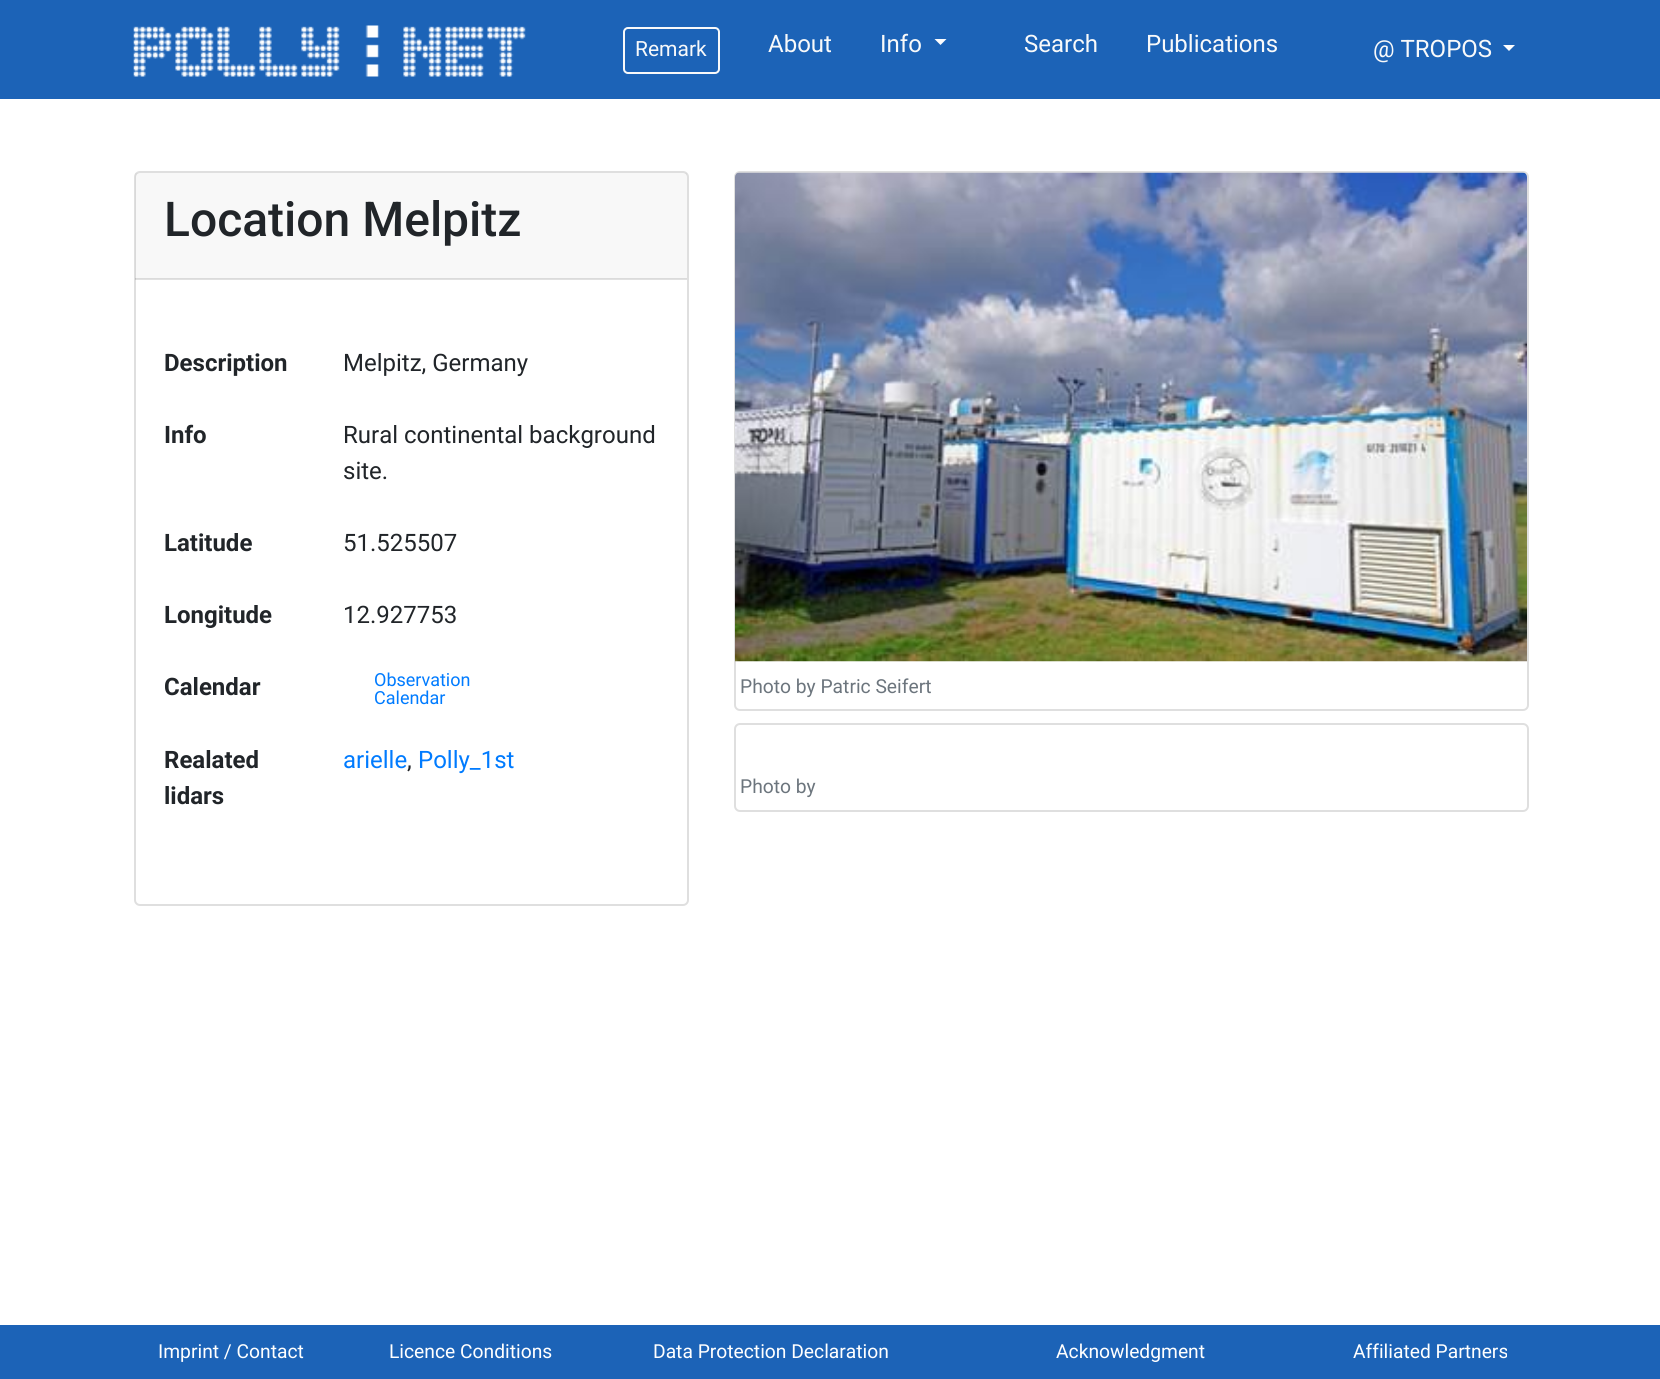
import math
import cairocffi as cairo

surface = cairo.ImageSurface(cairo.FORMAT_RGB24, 1660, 1379)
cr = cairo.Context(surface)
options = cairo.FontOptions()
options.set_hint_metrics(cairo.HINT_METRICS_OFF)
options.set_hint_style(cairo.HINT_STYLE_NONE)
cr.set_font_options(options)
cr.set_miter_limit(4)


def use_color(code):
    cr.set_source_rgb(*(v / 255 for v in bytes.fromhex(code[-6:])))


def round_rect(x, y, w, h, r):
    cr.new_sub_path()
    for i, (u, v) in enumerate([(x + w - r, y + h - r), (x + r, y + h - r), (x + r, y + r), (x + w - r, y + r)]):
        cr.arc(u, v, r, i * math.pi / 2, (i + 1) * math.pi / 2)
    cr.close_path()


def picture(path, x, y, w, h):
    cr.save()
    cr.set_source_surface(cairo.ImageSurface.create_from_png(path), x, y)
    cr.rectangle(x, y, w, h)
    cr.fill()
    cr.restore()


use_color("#ffffff")
cr.paint()
use_color("#1c63b7")
cr.rectangle(0, 0, 1660, 99)
cr.fill()
picture("img1.png", 133, 25, 393, 52)
round_rect(624, 28, 95, 45, 4)
use_color("#f8f9fa")
cr.stroke()
cr.select_font_face("Roboto")
cr.set_font_size(21)
cr.move_to(635, 56)
cr.show_text("Remark")
cr.set_font_size(24)
cr.move_to(768, 52)
cr.show_text("About")
cr.move_to(880, 52)
cr.show_text("Info")
use_color("#fdfdfe")
cr.new_path()
cr.move_to(934.5, 39)
cr.line_to(946.5, 39)
cr.line_to(940.5, 45)
cr.close_path()
cr.fill()
use_color("#f8f9fa")
cr.move_to(1024, 52)
cr.show_text("Search")
cr.move_to(1146, 52)
cr.show_text("Publications")
cr.move_to(1373, 57)
cr.show_text("@ TROPOS")
use_color("#fdfdfe")
cr.new_path()
cr.move_to(1503, 45)
cr.line_to(1515, 45)
cr.line_to(1509, 51)
cr.close_path()
cr.fill()
round_rect(135, 172, 553, 733, 5)
use_color("#dfdfdf")
cr.stroke()
cr.set_source_rgba(0, 0, 0, 0.03)
cr.rectangle(135, 173, 552, 106)
cr.fill()
cr.set_source_rgba(0, 0, 0, 0.12)
cr.rectangle(135, 278, 552, 2)
cr.fill()
cr.select_font_face("Roboto Medium")
cr.set_font_size(48)
use_color("#212529")
cr.move_to(164, 236)
cr.show_text("Location Melpitz")
cr.select_font_face("Roboto", cairo.FONT_SLANT_NORMAL, cairo.FONT_WEIGHT_BOLD)
cr.set_font_size(24)
cr.move_to(164, 371)
cr.show_text("Description")
cr.select_font_face("Roboto")
cr.move_to(343, 371)
cr.show_text("Melpitz, Germany")
cr.select_font_face("Roboto", cairo.FONT_SLANT_NORMAL, cairo.FONT_WEIGHT_BOLD)
cr.move_to(164, 443)
cr.show_text("Info")
cr.select_font_face("Roboto")
cr.move_to(343, 443)
cr.show_text("Rural continental background")
cr.move_to(343, 479)
cr.show_text("site.")
cr.select_font_face("Roboto", cairo.FONT_SLANT_NORMAL, cairo.FONT_WEIGHT_BOLD)
cr.move_to(164, 551)
cr.show_text("Latitude")
cr.select_font_face("Roboto")
cr.move_to(343, 551)
cr.show_text("51.525507")
cr.select_font_face("Roboto", cairo.FONT_SLANT_NORMAL, cairo.FONT_WEIGHT_BOLD)
cr.move_to(164, 623)
cr.show_text("Longitude")
cr.select_font_face("Roboto")
cr.move_to(343, 623)
cr.show_text("12.927753")
cr.select_font_face("Roboto", cairo.FONT_SLANT_NORMAL, cairo.FONT_WEIGHT_BOLD)
cr.move_to(164, 695)
cr.show_text("Calendar")
cr.select_font_face("Roboto")
cr.set_font_size(18)
use_color("#007bff")
cr.move_to(374, 686)
cr.show_text("Observation")
cr.move_to(374, 704)
cr.show_text("Calendar")
cr.select_font_face("Roboto", cairo.FONT_SLANT_NORMAL, cairo.FONT_WEIGHT_BOLD)
cr.set_font_size(24)
use_color("#212529")
cr.move_to(164, 768)
cr.show_text("Realated")
cr.move_to(164, 804)
cr.show_text("lidars")
cr.select_font_face("Roboto")
use_color("#007bff")
cr.move_to(343, 768)
cr.show_text("arielle")
use_color("#212529")
cr.move_to(407, 768)
cr.show_text(",")
use_color("#007bff")
cr.move_to(418, 768)
cr.show_text("Polly_1st")
round_rect(735, 172, 793, 538, 5)
use_color("#dfdfdf")
cr.stroke()
picture("img2.png", 735, 172, 792, 490)
cr.set_font_size(19.25)
use_color("#6c757d")
cr.move_to(740, 693)
cr.show_text("Photo by Patric Seifert")
round_rect(735, 724, 793, 87, 5)
use_color("#dfdfdf")
cr.stroke()
use_color("#6c757d")
cr.move_to(740, 793)
cr.show_text("Photo by")
use_color("#1c63b7")
cr.rectangle(0, 1325, 1660, 54)
cr.fill()
use_color("#ffffff")
cr.move_to(158, 1358)
cr.show_text("Imprint / Contact")
cr.move_to(389, 1358)
cr.show_text("Licence Conditions")
cr.move_to(653, 1358)
cr.show_text("Data Protection Declaration")
cr.move_to(1056, 1358)
cr.show_text("Acknowledgment")
cr.move_to(1353, 1358)
cr.show_text("Affiliated Partners")
surface.write_to_png("result.png")
